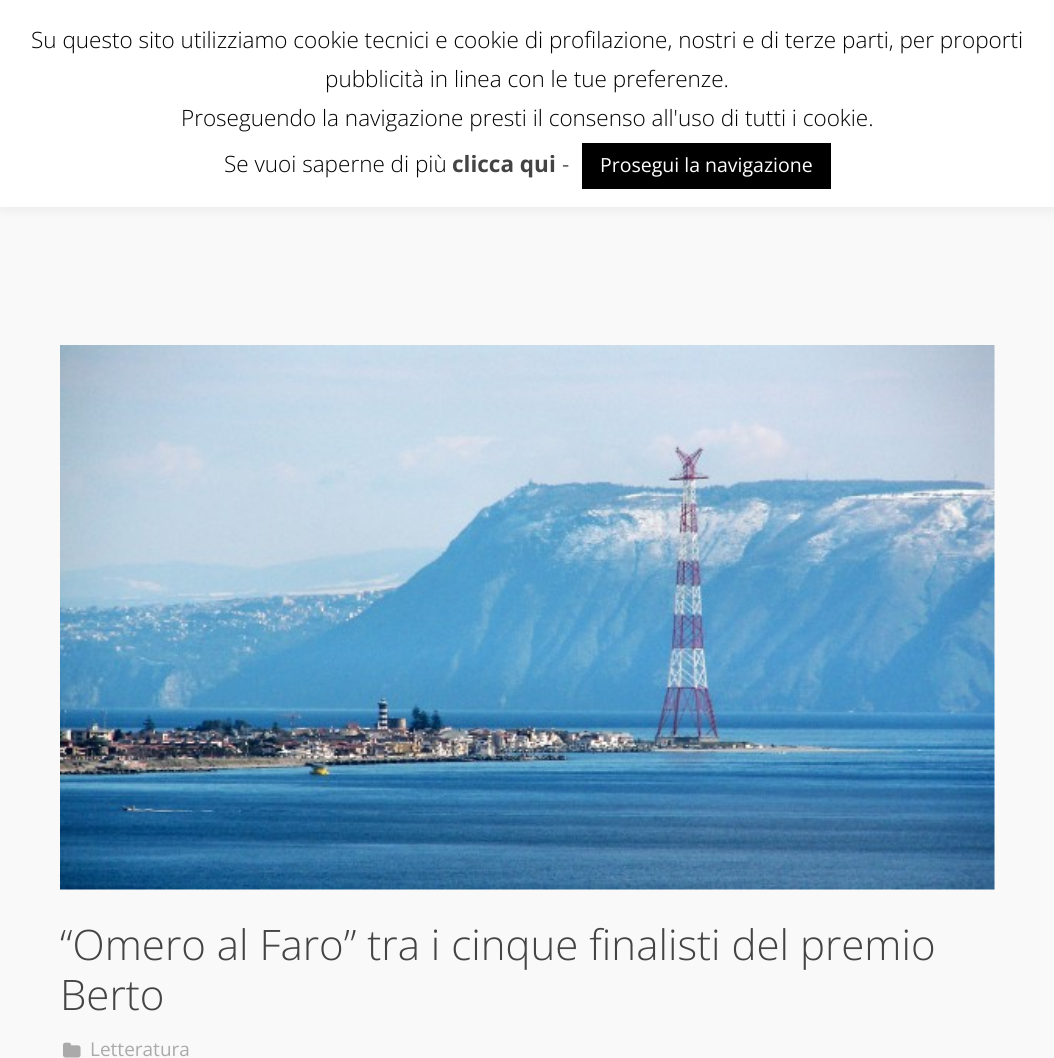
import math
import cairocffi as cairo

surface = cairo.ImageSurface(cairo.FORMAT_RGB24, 1054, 1058)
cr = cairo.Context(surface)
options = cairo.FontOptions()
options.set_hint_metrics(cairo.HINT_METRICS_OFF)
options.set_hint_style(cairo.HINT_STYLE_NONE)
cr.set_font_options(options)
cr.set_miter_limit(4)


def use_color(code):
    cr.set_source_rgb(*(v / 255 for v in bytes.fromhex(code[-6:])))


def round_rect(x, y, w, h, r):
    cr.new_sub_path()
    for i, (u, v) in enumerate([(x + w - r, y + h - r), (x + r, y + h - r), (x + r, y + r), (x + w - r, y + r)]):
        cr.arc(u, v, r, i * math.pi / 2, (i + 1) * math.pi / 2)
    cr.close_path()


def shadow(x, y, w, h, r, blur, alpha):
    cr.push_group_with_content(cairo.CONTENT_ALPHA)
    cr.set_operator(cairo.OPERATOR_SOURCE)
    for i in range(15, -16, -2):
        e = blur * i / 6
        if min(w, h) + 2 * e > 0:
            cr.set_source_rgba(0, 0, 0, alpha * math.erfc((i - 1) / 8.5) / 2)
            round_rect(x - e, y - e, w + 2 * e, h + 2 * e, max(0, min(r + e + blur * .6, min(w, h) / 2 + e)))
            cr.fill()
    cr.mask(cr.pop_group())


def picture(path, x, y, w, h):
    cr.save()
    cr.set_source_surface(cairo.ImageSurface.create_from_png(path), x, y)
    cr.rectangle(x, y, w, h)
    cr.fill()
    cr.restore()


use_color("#f9f9f9")
cr.paint()
use_color("#acabab")
shadow(0, -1, 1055, 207, 0, 7.5, 0.3)
use_color("#ffffff")
cr.rectangle(0, 0, 1054, 207)
cr.fill()
cr.select_font_face("Open Sans Light")
cr.set_font_size(22.5)
use_color("#000000")
cr.move_to(31, 48)
cr.show_text("Su questo sito utilizziamo cookie tecnici e cookie di profilazione, nostri e di terze parti, per proporti")
cr.move_to(325, 87)
cr.show_text("pubblicità in linea con le tue preferenze.")
cr.move_to(181, 126)
cr.show_text("Proseguendo la navigazione presti il consenso all'uso di tutti i cookie.")
cr.move_to(224, 172)
cr.show_text("Se vuoi saperne di più")
cr.select_font_face("Open Sans", cairo.FONT_SLANT_NORMAL, cairo.FONT_WEIGHT_BOLD)
use_color("#444444")
cr.move_to(452, 172)
cr.show_text("clicca qui")
cr.select_font_face("Open Sans Light")
use_color("#000000")
cr.move_to(562, 172)
cr.show_text("-")
cr.rectangle(582, 143, 249, 46)
cr.fill()
cr.select_font_face("Open Sans")
cr.set_font_size(19.5)
use_color("#ffffff")
cr.move_to(600, 172)
cr.show_text("Prosegui la navigazione")
picture("img1.png", 60, 345, 935, 545)
cr.select_font_face("Open Sans Light")
cr.set_font_size(42)
use_color("#444444")
cr.move_to(60, 960)
cr.show_text("“Omero al Faro” tra i cinque finalisti del premio")
cr.move_to(60, 1010)
cr.show_text("Berto")
picture("img2.png", 63, 1042, 18, 16)
cr.select_font_face("Open Sans")
cr.set_font_size(19)
use_color("#aaaaaa")
cr.move_to(90, 1056)
cr.show_text("Letteratura")
surface.write_to_png("result.png")
